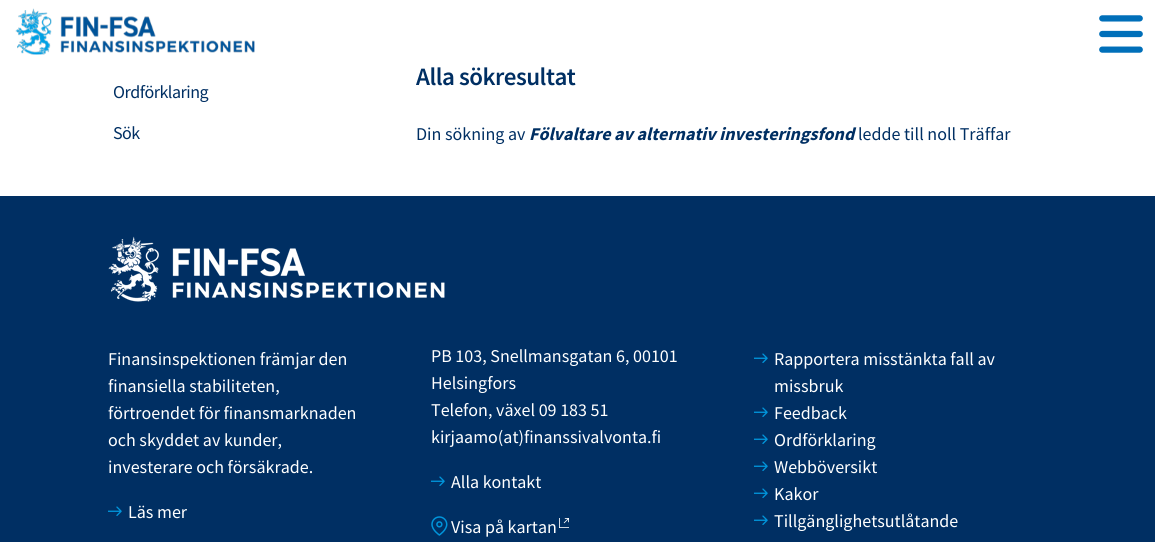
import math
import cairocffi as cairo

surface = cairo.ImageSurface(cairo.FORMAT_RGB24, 1155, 542)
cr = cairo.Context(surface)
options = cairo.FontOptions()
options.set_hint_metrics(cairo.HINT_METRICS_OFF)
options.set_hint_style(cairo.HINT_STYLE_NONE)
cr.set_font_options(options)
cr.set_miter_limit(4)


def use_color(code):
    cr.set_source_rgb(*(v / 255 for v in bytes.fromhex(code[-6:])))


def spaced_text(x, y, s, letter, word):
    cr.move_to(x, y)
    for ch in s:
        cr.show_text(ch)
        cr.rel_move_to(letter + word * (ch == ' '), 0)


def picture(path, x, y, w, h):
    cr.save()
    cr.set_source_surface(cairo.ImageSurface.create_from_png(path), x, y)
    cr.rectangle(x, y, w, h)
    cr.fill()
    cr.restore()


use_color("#ffffff")
cr.paint()
picture("img1.png", 15, 8, 240, 47)
picture("img2.png", 1099, 15, 44, 38)
cr.select_font_face("Source Sans Pro")
cr.set_font_size(18)
use_color("#002f63")
spaced_text(113, 98, "Ordförklaring", -0.5, 0)
spaced_text(113, 139, "Sök", -0.5, 0)
cr.select_font_face("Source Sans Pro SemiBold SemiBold")
cr.set_font_size(25)
spaced_text(416, 85, "Alla sökresultat", -0.5, 0)
cr.select_font_face("Source Sans Pro")
cr.set_font_size(18)
cr.move_to(416, 140)
cr.show_text("Din sökning av")
cr.select_font_face("Source Sans Pro", cairo.FONT_SLANT_ITALIC, cairo.FONT_WEIGHT_BOLD)
cr.move_to(529, 140)
cr.show_text("Fölvaltare av alternativ investeringsfond")
cr.select_font_face("Source Sans Pro")
cr.move_to(858, 140)
cr.show_text("ledde till noll Träffar")
cr.rectangle(0, 196, 1155, 346)
cr.fill()
picture("img3.png", 108, 236, 337, 66)
use_color("#ffffff")
cr.move_to(108, 365)
cr.show_text("Finansinspektionen främjar den")
cr.move_to(108, 392)
cr.show_text("finansiella stabiliteten,")
cr.move_to(108, 419)
cr.show_text("förtroendet för finansmarknaden")
cr.move_to(108, 446)
cr.show_text("och skyddet av kunder,")
cr.move_to(108, 473)
cr.show_text("investerare och försäkrade.")
picture("img4.png", 108, 506, 14, 10)
cr.move_to(128, 518)
cr.show_text("Läs mer")
cr.move_to(431, 362)
cr.show_text("PB 103, Snellmansgatan 6, 00101")
cr.move_to(431, 389)
cr.show_text("Helsingfors")
cr.move_to(431, 416)
cr.show_text("Telefon, växel 09 183 51")
cr.move_to(431, 443)
cr.show_text("kirjaamo(at)finanssivalvonta.fi")
picture("img4.png", 431, 476, 14, 10)
cr.move_to(451, 488)
cr.show_text("Alla kontakt")
picture("img5.png", 431, 516, 17, 20)
cr.move_to(451, 533)
cr.show_text("Visa på kartan")
picture("img6.png", 559, 518, 10, 10)
picture("img4.png", 754, 353, 14, 10)
cr.move_to(774, 365)
cr.show_text("Rapportera misstänkta fall av")
cr.move_to(774, 392)
cr.show_text("missbruk")
picture("img4.png", 754, 407, 14, 10)
cr.move_to(774, 419)
cr.show_text("Feedback")
picture("img4.png", 754, 434, 14, 10)
cr.move_to(774, 446)
cr.show_text("Ordförklaring")
picture("img4.png", 754, 461, 14, 10)
cr.move_to(774, 473)
cr.show_text("Webböversikt")
picture("img4.png", 754, 488, 14, 10)
cr.move_to(774, 500)
cr.show_text("Kakor")
picture("img4.png", 754, 515, 14, 10)
cr.move_to(774, 527)
cr.show_text("Tillgänglighetsutlåtande")
surface.write_to_png("result.png")
